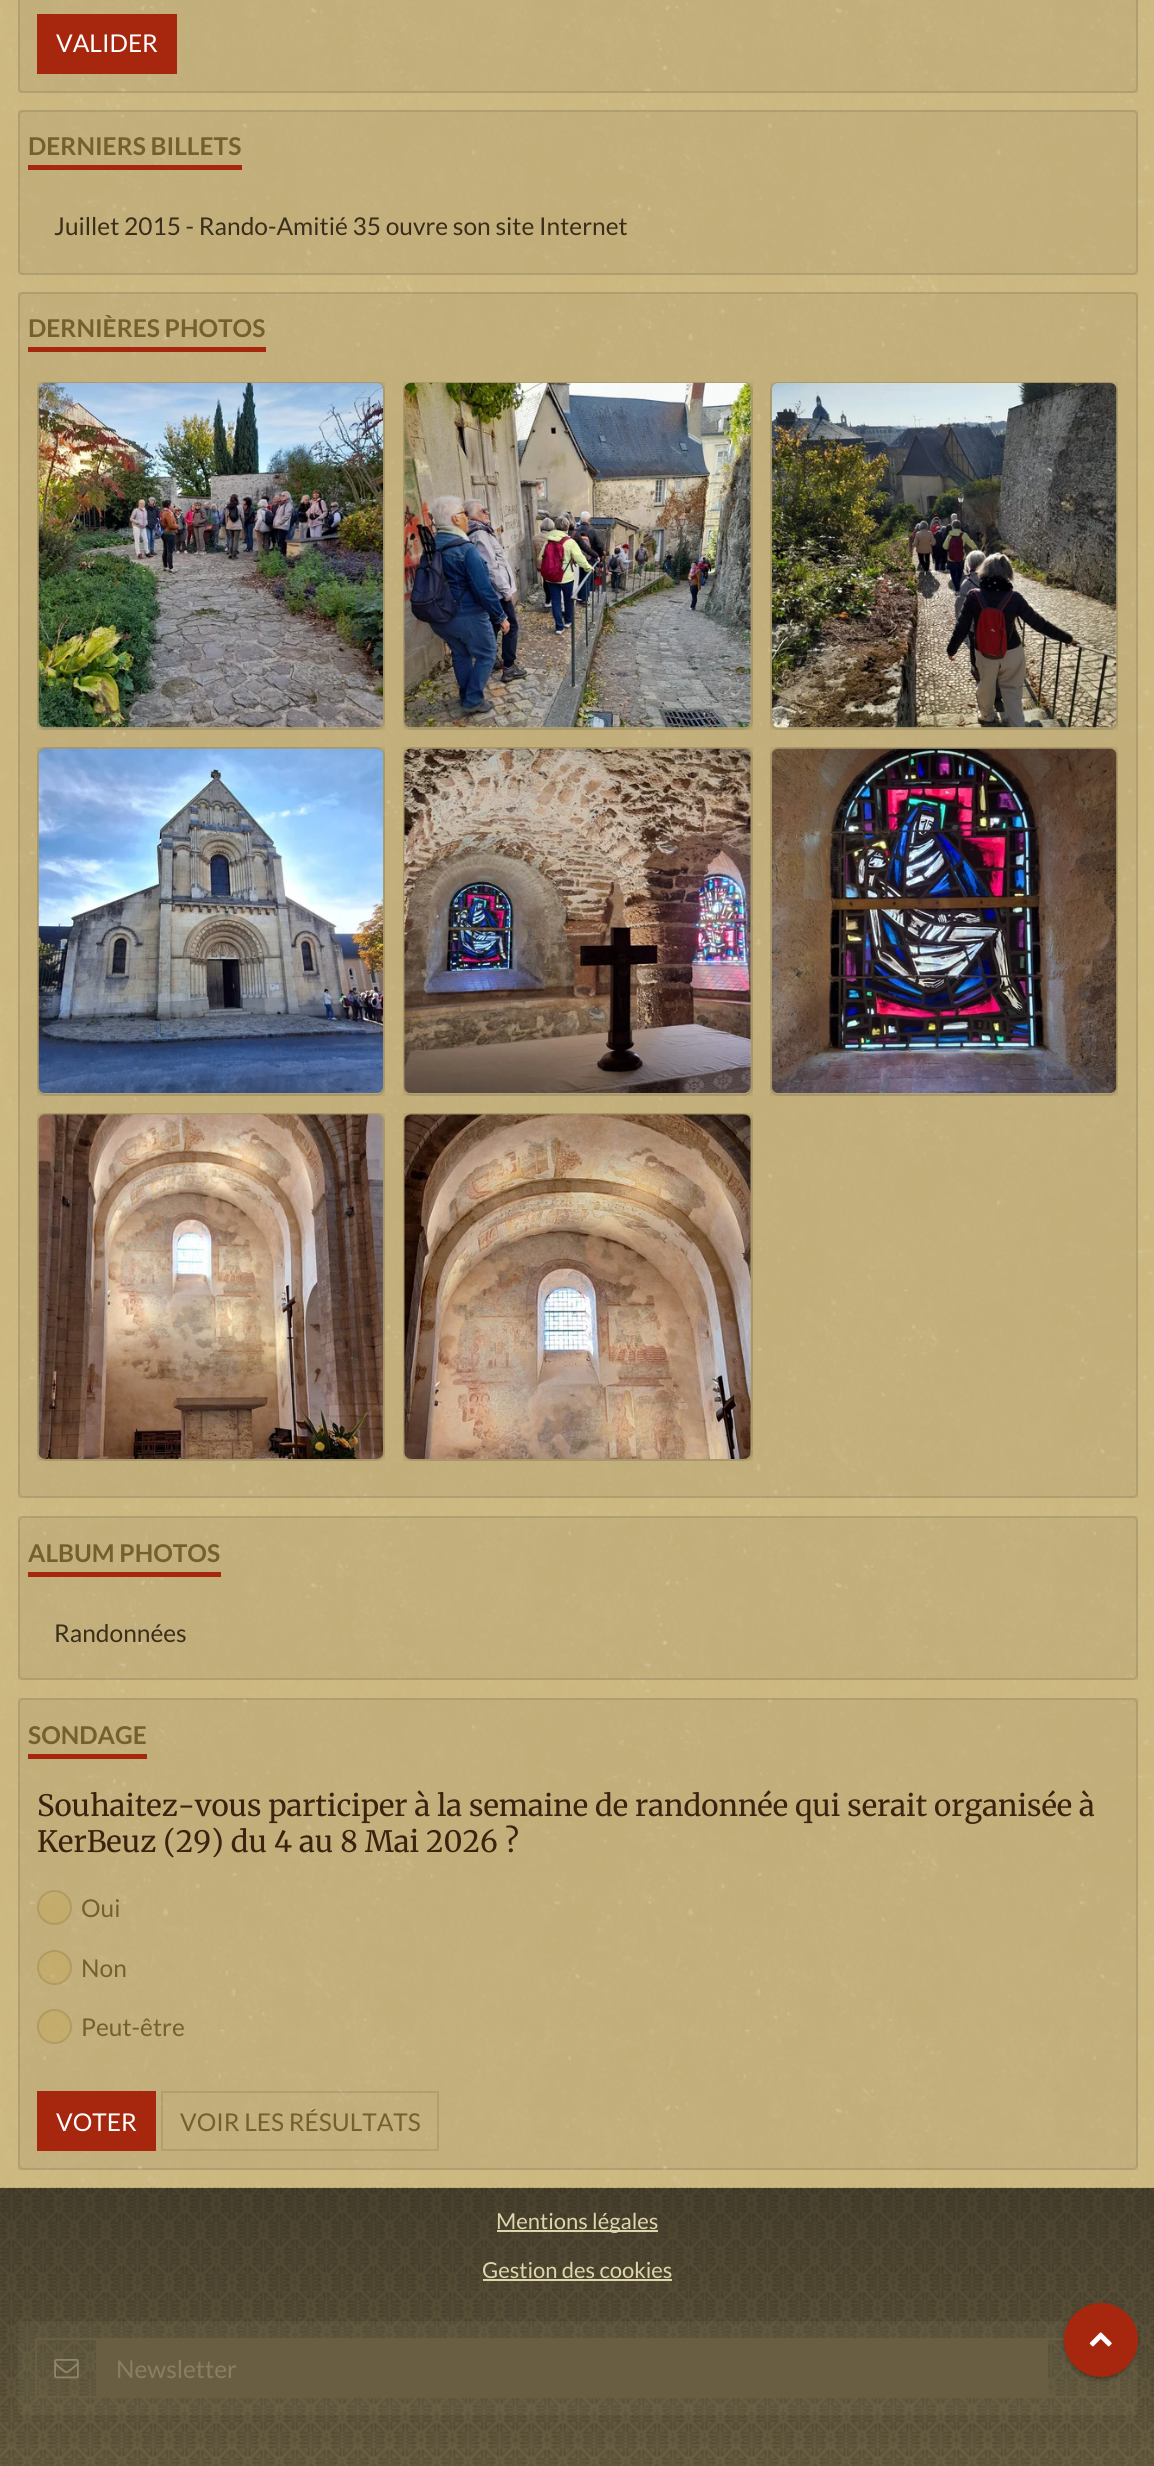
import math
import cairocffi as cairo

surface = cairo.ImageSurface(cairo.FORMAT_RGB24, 1154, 2466)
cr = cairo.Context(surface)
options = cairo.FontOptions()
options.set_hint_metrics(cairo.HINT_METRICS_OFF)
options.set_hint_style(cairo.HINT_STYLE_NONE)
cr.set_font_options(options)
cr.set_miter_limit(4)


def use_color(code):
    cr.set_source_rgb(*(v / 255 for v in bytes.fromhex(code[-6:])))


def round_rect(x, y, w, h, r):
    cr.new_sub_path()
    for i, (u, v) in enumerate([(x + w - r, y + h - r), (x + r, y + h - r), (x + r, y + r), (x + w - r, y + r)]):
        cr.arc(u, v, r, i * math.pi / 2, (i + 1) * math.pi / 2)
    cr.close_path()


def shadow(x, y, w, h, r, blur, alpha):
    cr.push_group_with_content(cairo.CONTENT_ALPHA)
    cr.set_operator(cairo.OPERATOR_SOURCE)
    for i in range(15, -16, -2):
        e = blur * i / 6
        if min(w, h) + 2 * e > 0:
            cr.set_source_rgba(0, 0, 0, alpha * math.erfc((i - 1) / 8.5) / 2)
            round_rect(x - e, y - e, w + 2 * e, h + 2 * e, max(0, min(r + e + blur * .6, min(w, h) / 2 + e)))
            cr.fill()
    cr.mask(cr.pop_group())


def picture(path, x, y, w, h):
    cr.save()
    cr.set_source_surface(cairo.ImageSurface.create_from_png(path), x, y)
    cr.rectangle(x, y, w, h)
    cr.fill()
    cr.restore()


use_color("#cbb67d")
cr.paint()
picture("img1.png", 0, 0, 1154, 2188)
cr.set_source_rgba(0, 0, 0, 0.05)
cr.rectangle(18, 0, 1120, 93)
cr.fill()
round_rect(19, -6, 1118, 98, 4)
cr.set_source_rgba(0, 0, 0, 0.1)
cr.stroke()
use_color("#a7270e")
cr.rectangle(37, 14, 140, 60)
cr.fill()
cr.select_font_face("Lato")
cr.set_font_size(24.5)
use_color("#ffffff")
cr.move_to(56, 52)
cr.show_text("VALIDER")
cr.set_source_rgba(0, 0, 0, 0.05)
cr.rectangle(18, 110, 1120, 165)
cr.fill()
round_rect(19, 111, 1118, 163, 4)
cr.set_source_rgba(0, 0, 0, 0.1)
cr.stroke()
cr.select_font_face("Lato", cairo.FONT_SLANT_NORMAL, cairo.FONT_WEIGHT_BOLD)
use_color("#74602e")
cr.move_to(28, 155)
cr.show_text("DERNIERS BILLETS")
use_color("#a7270e")
cr.rectangle(28, 165, 214, 5)
cr.fill()
cr.select_font_face("Lato")
use_color("#3a2d1a")
cr.move_to(54, 235)
cr.show_text("Juillet 2015 - Rando-Amitié 35 ouvre son site Internet")
cr.set_source_rgba(0, 0, 0, 0.05)
cr.rectangle(18, 292, 1120, 1206)
cr.fill()
round_rect(19, 293, 1118, 1204, 4)
cr.set_source_rgba(0, 0, 0, 0.1)
cr.stroke()
cr.select_font_face("Lato", cairo.FONT_SLANT_NORMAL, cairo.FONT_WEIGHT_BOLD)
use_color("#74602e")
cr.move_to(28, 337)
cr.show_text("DERNIÈRES PHOTOS")
use_color("#a7270e")
cr.rectangle(28, 347, 238, 5)
cr.fill()
cr.set_source_rgba(0, 0, 0, 0.05)
cr.rectangle(37, 382, 348, 348)
cr.fill()
round_rect(38, 383, 346, 346, 8)
cr.set_source_rgba(0, 0, 0, 0.1)
cr.stroke()
picture("img2.png", 38, 382, 346, 346)
cr.set_source_rgba(0, 0, 0, 0.05)
cr.rectangle(403, 382, 350, 348)
cr.fill()
round_rect(404, 383, 348, 346, 8)
cr.set_source_rgba(0, 0, 0, 0.1)
cr.stroke()
picture("img3.png", 404, 382, 347, 346)
cr.set_source_rgba(0, 0, 0, 0.05)
cr.rectangle(770, 382, 348, 348)
cr.fill()
round_rect(771, 383, 346, 346, 8)
cr.set_source_rgba(0, 0, 0, 0.1)
cr.stroke()
picture("img4.png", 771, 382, 346, 346)
cr.set_source_rgba(0, 0, 0, 0.05)
cr.rectangle(37, 747, 348, 349)
cr.fill()
round_rect(38, 748, 346, 347, 8)
cr.set_source_rgba(0, 0, 0, 0.1)
cr.stroke()
picture("img5.png", 38, 748, 346, 346)
cr.set_source_rgba(0, 0, 0, 0.05)
cr.rectangle(403, 747, 350, 349)
cr.fill()
round_rect(404, 748, 348, 347, 8)
cr.set_source_rgba(0, 0, 0, 0.1)
cr.stroke()
picture("img6.png", 404, 748, 347, 346)
cr.set_source_rgba(0, 0, 0, 0.05)
cr.rectangle(770, 747, 348, 349)
cr.fill()
round_rect(771, 748, 346, 347, 8)
cr.set_source_rgba(0, 0, 0, 0.1)
cr.stroke()
picture("img7.png", 771, 748, 346, 346)
cr.set_source_rgba(0, 0, 0, 0.05)
cr.rectangle(37, 1113, 348, 348)
cr.fill()
round_rect(38, 1114, 346, 346, 8)
cr.set_source_rgba(0, 0, 0, 0.1)
cr.stroke()
picture("img8.png", 38, 1114, 346, 345)
cr.set_source_rgba(0, 0, 0, 0.05)
cr.rectangle(403, 1113, 350, 348)
cr.fill()
round_rect(404, 1114, 348, 346, 8)
cr.set_source_rgba(0, 0, 0, 0.1)
cr.stroke()
picture("img9.png", 404, 1114, 347, 345)
cr.set_source_rgba(0, 0, 0, 0.05)
cr.rectangle(18, 1516, 1120, 164)
cr.fill()
round_rect(19, 1517, 1118, 162, 4)
cr.set_source_rgba(0, 0, 0, 0.1)
cr.stroke()
use_color("#74602e")
cr.move_to(28, 1562)
cr.show_text("ALBUM PHOTOS")
use_color("#a7270e")
cr.rectangle(28, 1572, 193, 5)
cr.fill()
cr.select_font_face("Lato")
use_color("#3a2d1a")
cr.move_to(54, 1642)
cr.show_text("Randonnées")
cr.set_source_rgba(0, 0, 0, 0.05)
cr.rectangle(18, 1698, 1120, 472)
cr.fill()
round_rect(19, 1699, 1118, 470, 4)
cr.set_source_rgba(0, 0, 0, 0.1)
cr.stroke()
cr.select_font_face("Lato", cairo.FONT_SLANT_NORMAL, cairo.FONT_WEIGHT_BOLD)
use_color("#74602e")
cr.move_to(28, 1744)
cr.show_text("SONDAGE")
use_color("#a7270e")
cr.rectangle(28, 1754, 119, 5)
cr.fill()
cr.select_font_face("Merriweather")
cr.set_font_size(29.4)
use_color("#39230e")
cr.move_to(37, 1816)
cr.show_text("Souhaitez-vous participer à la semaine de randonnée qui serait organisée à")
cr.move_to(37, 1852)
cr.show_text("KerBeuz (29) du 4 au 8 Mai 2026 ?")
cr.set_source_rgba(0.773, 0.639, 0.298, 0.3)
cr.new_path()
cr.arc(54.5, 1907.5, 17.5, 0, 2 * math.pi)
cr.fill()
cr.arc(54.5, 1907.5, 16.5, 0, 2 * math.pi)
cr.set_source_rgba(0, 0, 0, 0.1)
cr.stroke()
cr.select_font_face("Lato")
cr.set_font_size(24.5)
use_color("#74602e")
cr.move_to(81, 1917)
cr.show_text("Oui")
cr.set_source_rgba(0.773, 0.639, 0.298, 0.3)
cr.new_path()
cr.arc(54.5, 1967.5, 17.5, 0, 2 * math.pi)
cr.fill()
cr.arc(54.5, 1967.5, 16.5, 0, 2 * math.pi)
cr.set_source_rgba(0, 0, 0, 0.1)
cr.stroke()
use_color("#74602e")
cr.move_to(81, 1977)
cr.show_text("Non")
cr.set_source_rgba(0.773, 0.639, 0.298, 0.3)
cr.new_path()
cr.arc(54.5, 2026.5, 17.5, 0, 2 * math.pi)
cr.fill()
cr.arc(54.5, 2026.5, 16.5, 0, 2 * math.pi)
cr.set_source_rgba(0, 0, 0, 0.1)
cr.stroke()
use_color("#74602e")
cr.move_to(81, 2036)
cr.show_text("Peut-être")
use_color("#a7270e")
cr.rectangle(37, 2091, 119, 60)
cr.fill()
use_color("#ffffff")
cr.move_to(56, 2131)
cr.show_text("VOTER")
cr.rectangle(162, 2092, 276, 58)
cr.set_source_rgba(0, 0, 0, 0.1)
cr.stroke()
use_color("#74602e")
cr.move_to(180, 2131)
cr.show_text("VOIR LES RÉSULTATS")
use_color("#695e42")
cr.rectangle(0, 2188, 1154, 278)
cr.fill()
picture("img10.png", 0, 2187, 1154, 279)
gradient = cairo.LinearGradient(578, 2188, 578, 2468)
gradient.add_color_stop_rgba(0, 0, 0, 0, 0.3)
gradient.add_color_stop_rgba(1, 0, 0, 0, 0)
cr.set_source(gradient)
cr.rectangle(0, 2188, 1154, 256)
cr.fill()
use_color("#dfd6ab")
cr.rectangle(497, 2230, 161, 2)
cr.fill()
cr.set_font_size(22)
cr.move_to(496, 2229)
cr.show_text("Mentions légales")
cr.move_to(482, 2278)
cr.show_text("Gestion des cookies")
cr.rectangle(483, 2279, 189, 2)
cr.fill()
cr.set_source_rgba(0.569, 0.525, 0.416, 0.15)
round_rect(18, 2321, 1120, 94, 5)
cr.fill()
cr.rectangle(36, 2339, 61, 58)
use_color("#695e42")
cr.stroke()
picture("img11.png", 54, 2359, 25, 20)
cr.rectangle(98, 2338, 950, 60)
cr.fill()
cr.set_font_size(24.5)
use_color("#897e62")
cr.move_to(116, 2378)
cr.show_text("Newsletter")
use_color("#695e42")
cr.rectangle(1047, 2338, 18, 2)
cr.fill()
cr.rectangle(1118, 2371, 2, 27)
cr.fill()
cr.rectangle(1047, 2396, 73, 2)
cr.fill()
use_color("#000000")
shadow(1064, 2305, 74, 73, 36.5, 4.5, 0.12)
shadow(1068, 2312, 66, 66, 33, 1, 0.2)
shadow(1064, 2307, 74, 73, 36.5, 2, 0.14)
use_color("#a7270e")
cr.arc(1101, 2340, 37, 0, 2 * math.pi)
cr.fill()
picture("img12.png", 1089, 2332, 23, 15)
surface.write_to_png("result.png")
